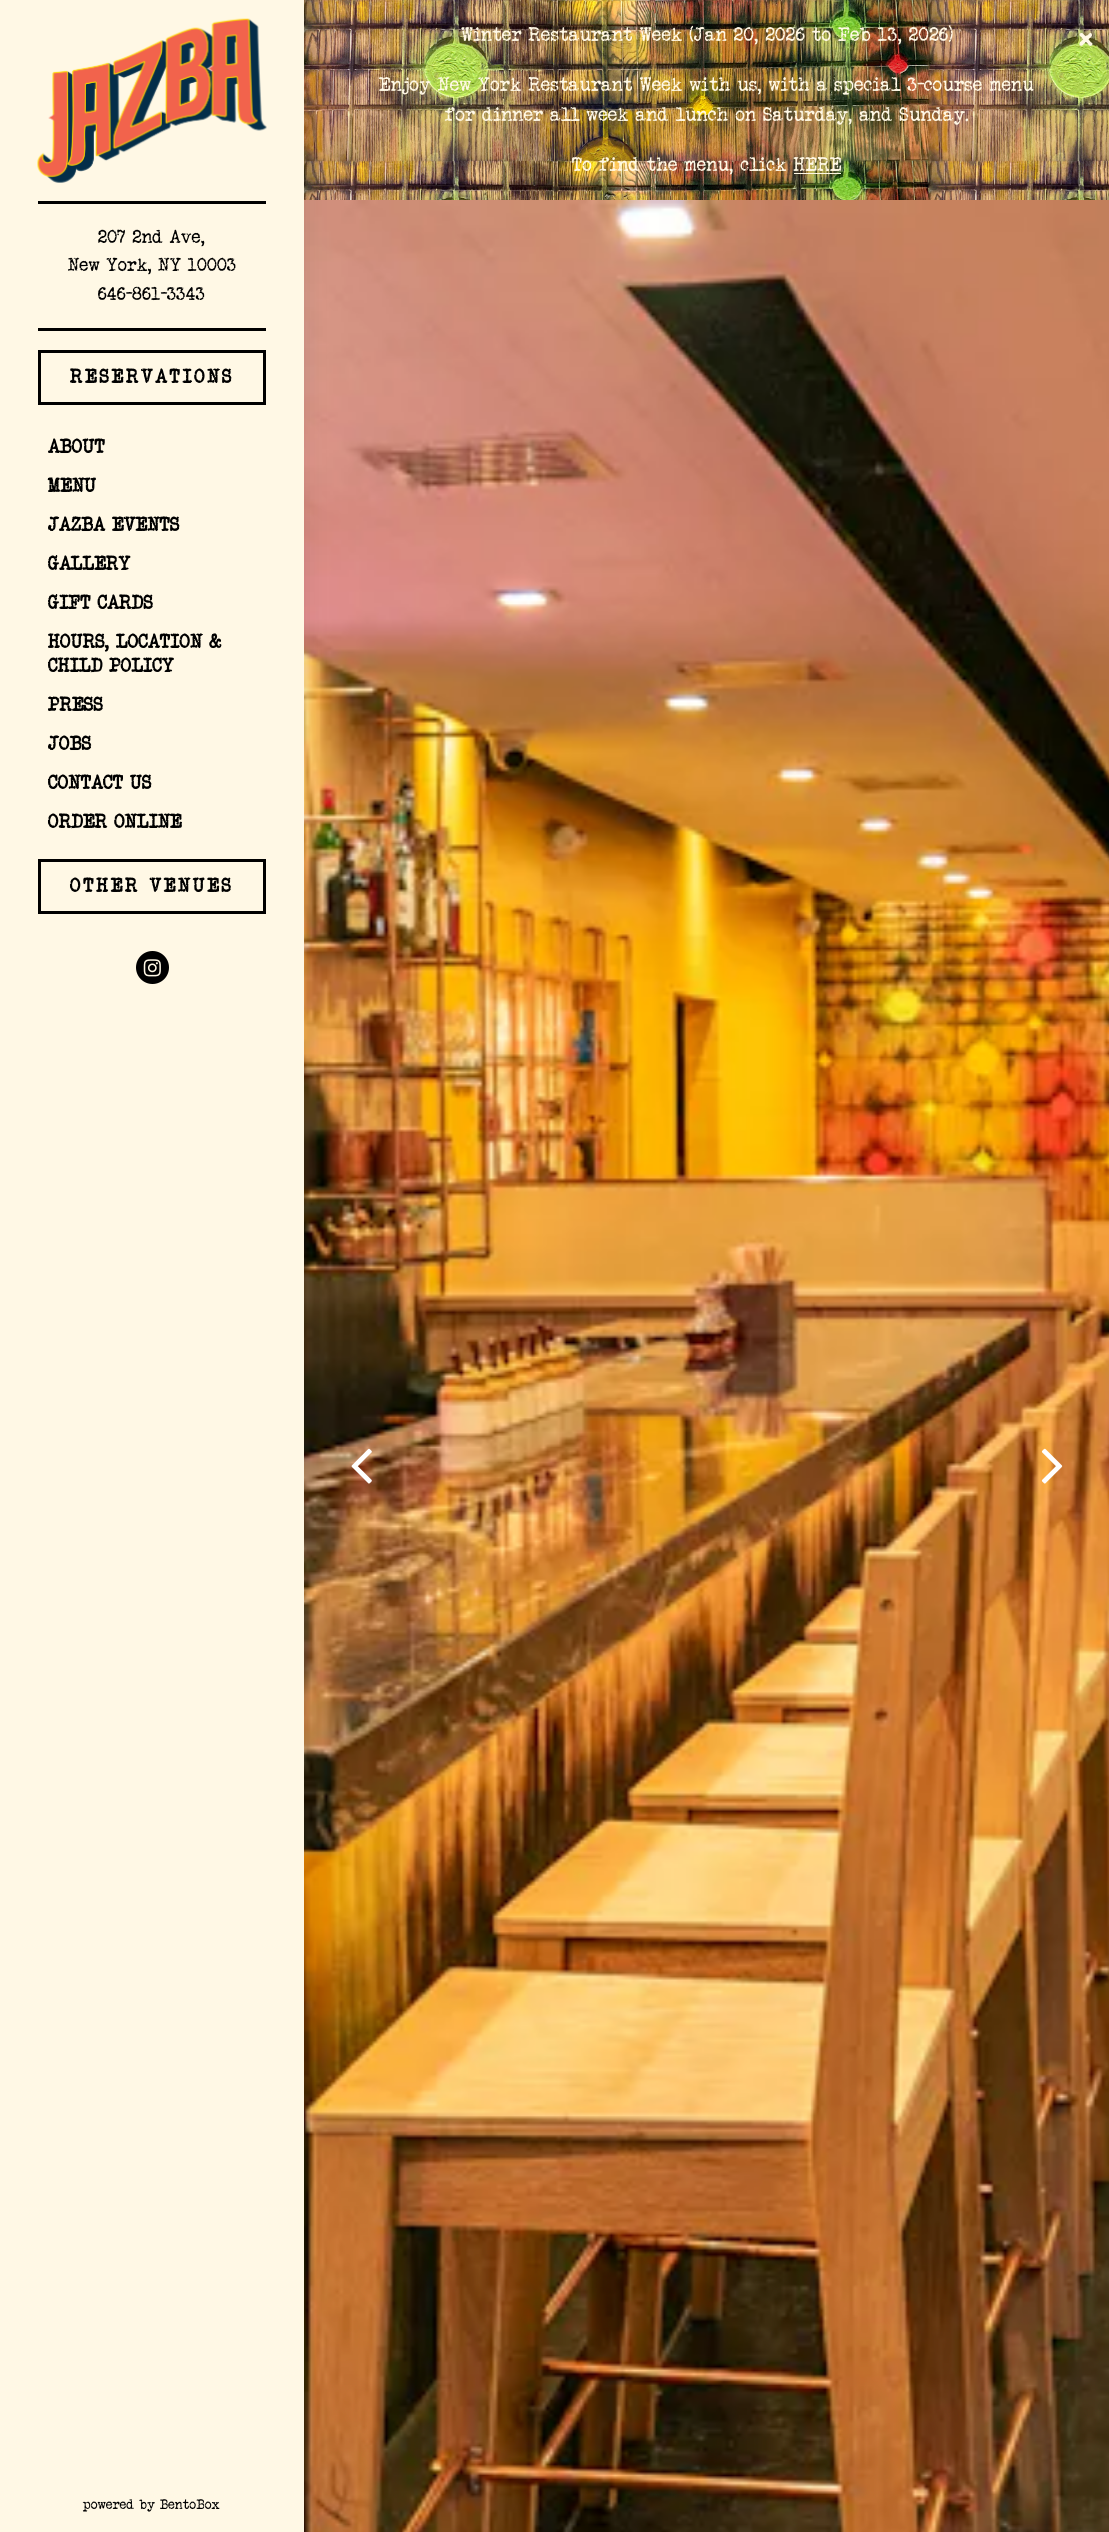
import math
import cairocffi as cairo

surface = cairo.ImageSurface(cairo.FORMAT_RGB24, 1109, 2532)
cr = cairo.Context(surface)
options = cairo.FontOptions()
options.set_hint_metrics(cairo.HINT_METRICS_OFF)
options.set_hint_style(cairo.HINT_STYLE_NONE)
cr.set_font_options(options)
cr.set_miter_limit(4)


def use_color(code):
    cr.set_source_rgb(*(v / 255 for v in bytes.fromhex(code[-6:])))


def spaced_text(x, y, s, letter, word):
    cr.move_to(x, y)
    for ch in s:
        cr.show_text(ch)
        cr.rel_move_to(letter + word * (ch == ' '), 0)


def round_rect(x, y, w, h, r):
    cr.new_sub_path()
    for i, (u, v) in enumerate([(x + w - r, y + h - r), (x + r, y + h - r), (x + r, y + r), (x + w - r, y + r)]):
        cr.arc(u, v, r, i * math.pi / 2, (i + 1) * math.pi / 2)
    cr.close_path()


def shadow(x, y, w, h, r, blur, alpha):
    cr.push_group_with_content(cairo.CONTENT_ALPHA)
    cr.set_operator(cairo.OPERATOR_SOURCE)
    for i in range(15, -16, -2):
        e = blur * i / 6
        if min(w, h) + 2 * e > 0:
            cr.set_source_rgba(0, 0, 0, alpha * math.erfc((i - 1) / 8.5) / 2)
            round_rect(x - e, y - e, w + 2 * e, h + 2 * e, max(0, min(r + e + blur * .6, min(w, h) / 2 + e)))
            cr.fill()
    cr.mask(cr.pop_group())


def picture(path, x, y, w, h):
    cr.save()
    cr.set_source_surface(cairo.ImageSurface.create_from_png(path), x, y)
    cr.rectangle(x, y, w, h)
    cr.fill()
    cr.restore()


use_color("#ffffff")
cr.paint()
picture("img1.png", 304, 0, 805, 200)
cr.select_font_face("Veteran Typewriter")
cr.set_font_size(20)
use_color("#fff8e5")
cr.move_to(461, 41)
cr.show_text("Winter Restaurant Week (Jan 20, 2026 to Feb 13, 2026)")
cr.move_to(379, 91)
cr.show_text("Enjoy New York Restaurant Week with us, with a special 3-course menu")
cr.move_to(445, 121)
cr.show_text("for dinner all week and lunch on Saturday, and Sunday.")
cr.move_to(572, 171)
cr.show_text("To find the menu, click HERE")
cr.rectangle(794, 173, 47, 1)
cr.fill()
cr.set_font_size(50)
cr.move_to(1078, 58)
cr.show_text("×")
picture("img2.png", 304, 200, 805, 2332)
picture("img3.png", 351, 1448, 21, 36)
picture("img4.png", 1041, 1448, 22, 36)
use_color("#000000")
shadow(0, 13, 304, 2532, 0, 12.5, 0.1)
use_color("#fff8e5")
cr.rectangle(0, 0, 304, 2532)
cr.fill()
picture("img5.png", 37, 18, 230, 165)
use_color("#000000")
cr.rectangle(38, 201, 228, 3)
cr.fill()
cr.rectangle(38, 328, 228, 3)
cr.fill()
cr.set_font_size(19)
cr.move_to(98, 243)
cr.show_text("207 2nd Ave,")
cr.move_to(68, 271)
cr.show_text("New York, NY 10003")
cr.move_to(98, 300)
cr.show_text("646-861-3343")
cr.rectangle(39.5, 351.5, 225, 52)
cr.set_line_width(3)
cr.stroke()
cr.select_font_face("Veteran Typewriter", cairo.FONT_SLANT_NORMAL, cairo.FONT_WEIGHT_BOLD)
cr.set_font_size(20)
spaced_text(70, 383, "RESERVATIONS", 2.5, 0)
cr.move_to(48, 453)
cr.show_text("ABOUT")
cr.move_to(48, 492)
cr.show_text("MENU")
cr.move_to(48, 531)
cr.show_text("JAZBA EVENTS")
cr.move_to(48, 570)
cr.show_text("GALLERY")
cr.move_to(48, 609)
cr.show_text("GIFT CARDS")
cr.move_to(48, 648)
cr.show_text("HOURS, LOCATION &")
cr.move_to(48, 672)
cr.show_text("CHILD POLICY")
cr.move_to(48, 711)
cr.show_text("PRESS")
cr.move_to(48, 750)
cr.show_text("JOBS")
cr.move_to(48, 789)
cr.show_text("CONTACT US")
cr.move_to(48, 828)
cr.show_text("ORDER ONLINE")
cr.rectangle(39.5, 860.5, 225, 52)
cr.stroke()
spaced_text(70, 892, "OTHER VENUES", 2.5, 0)
cr.new_path()
cr.arc(152.5, 967.5, 16.5, 0, 2 * math.pi)
cr.fill()
picture("img6.png", 143, 959, 18, 18)
cr.select_font_face("Veteran Typewriter")
cr.set_font_size(14)
cr.move_to(83, 2509)
cr.show_text("powered by BentoBox")
surface.write_to_png("result.png")
